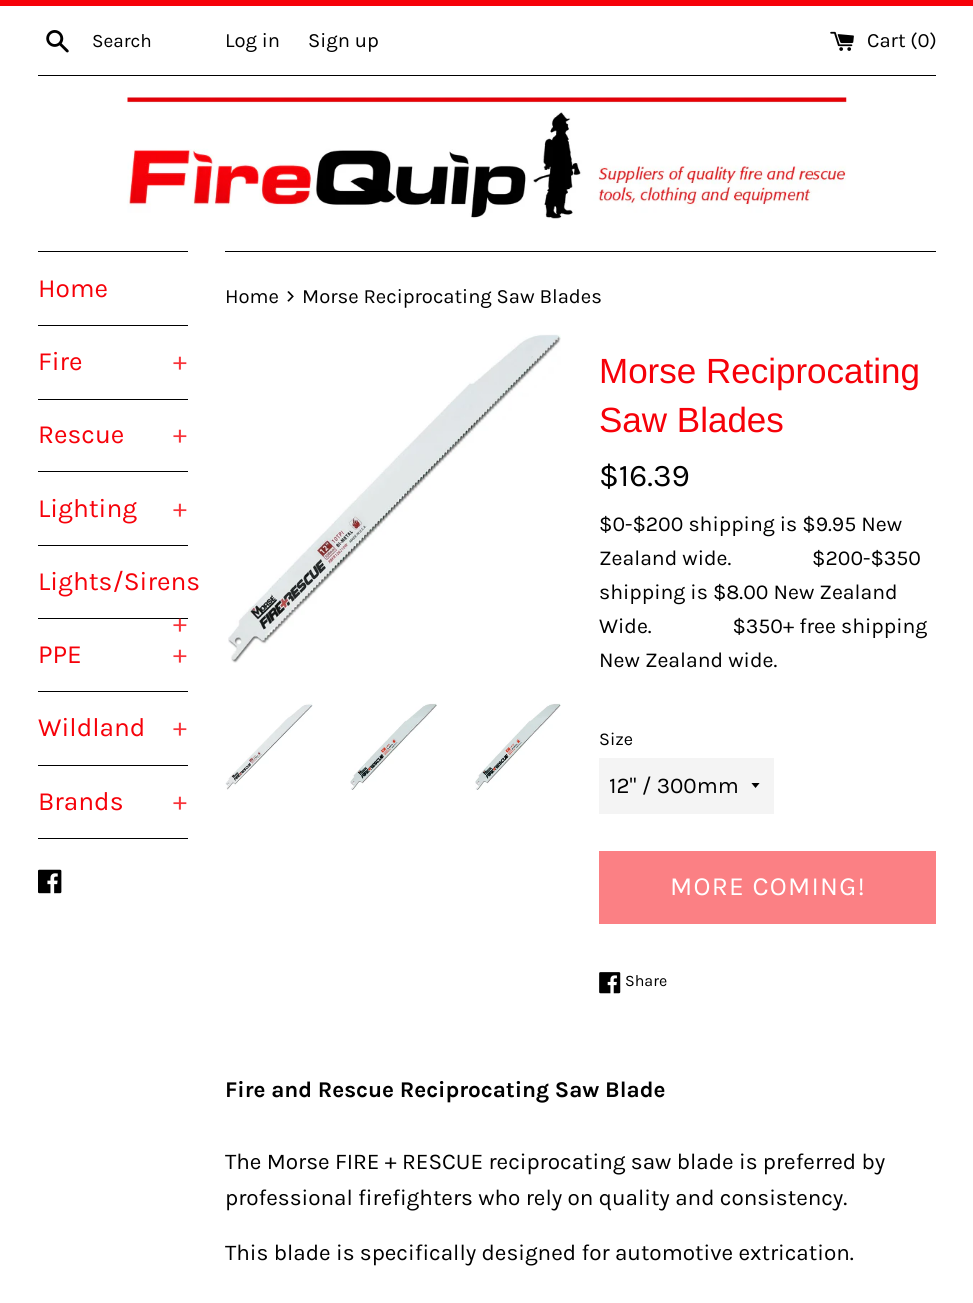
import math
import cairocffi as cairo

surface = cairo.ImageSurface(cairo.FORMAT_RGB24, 973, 1303)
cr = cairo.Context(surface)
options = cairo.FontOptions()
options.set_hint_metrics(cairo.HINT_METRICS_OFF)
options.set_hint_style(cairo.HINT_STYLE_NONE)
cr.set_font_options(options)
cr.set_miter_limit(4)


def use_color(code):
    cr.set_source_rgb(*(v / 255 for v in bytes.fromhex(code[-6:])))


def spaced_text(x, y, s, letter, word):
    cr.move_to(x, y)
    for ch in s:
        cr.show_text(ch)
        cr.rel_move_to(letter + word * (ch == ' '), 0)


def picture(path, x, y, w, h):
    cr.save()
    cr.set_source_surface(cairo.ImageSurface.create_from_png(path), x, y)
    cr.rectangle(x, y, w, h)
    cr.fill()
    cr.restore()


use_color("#ffffff")
cr.paint()
use_color("#f60109")
cr.rectangle(0, 0, 973, 6)
cr.fill()
picture("img1.png", 46, 30, 23, 23)
cr.select_font_face("Karla")
cr.set_font_size(19)
use_color("#000000")
cr.move_to(92, 47)
cr.show_text("Search")
cr.set_font_size(20.25)
cr.move_to(225, 47)
cr.show_text("Log in")
cr.move_to(308, 47)
cr.show_text("Sign up")
picture("img2.png", 830, 31, 24, 20)
cr.move_to(867, 47)
cr.show_text("Cart (0)")
cr.rectangle(38, 75, 898, 1)
cr.fill()
picture("img3.png", 127, 97, 720, 122)
cr.rectangle(38, 251, 150, 1)
cr.fill()
cr.rectangle(38, 325, 150, 1)
cr.fill()
cr.set_font_size(26.25)
use_color("#f60109")
cr.move_to(38, 297)
cr.show_text("Home")
use_color("#000000")
cr.rectangle(38, 399, 150, 1)
cr.fill()
use_color("#f60109")
cr.move_to(38, 370)
cr.show_text("Fire")
use_color("#f8343a")
cr.move_to(173, 370)
cr.show_text("+")
use_color("#000000")
cr.rectangle(38, 471, 150, 1)
cr.fill()
use_color("#f60109")
cr.move_to(38, 443)
cr.show_text("Rescue")
use_color("#f8343a")
cr.move_to(173, 443)
cr.show_text("+")
use_color("#000000")
cr.rectangle(38, 545, 150, 1)
cr.fill()
use_color("#f60109")
cr.move_to(38, 517)
cr.show_text("Lighting")
use_color("#f8343a")
cr.move_to(173, 517)
cr.show_text("+")
use_color("#000000")
cr.rectangle(38, 618, 150, 1)
cr.fill()
use_color("#f60109")
cr.move_to(38, 590)
cr.show_text("Lights/Sirens")
use_color("#f8343a")
cr.move_to(173, 632)
cr.show_text("+")
use_color("#000000")
cr.rectangle(38, 691, 150, 1)
cr.fill()
use_color("#f60109")
cr.move_to(38, 663)
cr.show_text("PPE")
use_color("#f8343a")
cr.move_to(173, 663)
cr.show_text("+")
use_color("#000000")
cr.rectangle(38, 765, 150, 1)
cr.fill()
use_color("#f60109")
cr.move_to(38, 736)
cr.show_text("Wildland")
use_color("#f8343a")
cr.move_to(173, 736)
cr.show_text("+")
use_color("#000000")
cr.rectangle(38, 838, 150, 1)
cr.fill()
use_color("#f60109")
cr.move_to(38, 810)
cr.show_text("Brands")
use_color("#f8343a")
cr.move_to(173, 810)
cr.show_text("+")
picture("img4.png", 38, 869, 24, 25)
use_color("#000000")
cr.rectangle(225, 251, 711, 1)
cr.fill()
cr.set_font_size(20.25)
cr.move_to(225, 303)
cr.show_text("Home")
cr.set_font_size(25)
cr.move_to(286, 303)
cr.show_text("›")
cr.set_font_size(20.25)
cr.move_to(302, 303)
cr.show_text("Morse Reciprocating Saw Blades")
picture("img5.png", 228, 334, 333, 329)
picture("img6.png", 225, 702, 88, 88)
picture("img7.png", 350, 703, 87, 87)
picture("img8.png", 475, 703, 86, 87)
cr.select_font_face("Arimo")
cr.set_font_size(35)
use_color("#f60109")
cr.move_to(599, 383)
cr.show_text("Morse Reciprocating")
cr.move_to(599, 432)
cr.show_text("Saw Blades")
cr.select_font_face("Karla")
cr.set_font_size(31.5)
use_color("#000000")
cr.move_to(599, 486)
cr.show_text("$16.39")
cr.set_font_size(21.25)
cr.move_to(599, 531)
cr.show_text("$0-$200 shipping is $9.95 New")
cr.move_to(599, 565)
cr.show_text("Zealand wide.                $200-$350")
cr.move_to(599, 599)
cr.show_text("shipping is $8.00 New Zealand")
cr.move_to(599, 633)
cr.show_text("Wide.                $350+ free shipping")
cr.move_to(599, 667)
cr.show_text("New Zealand wide.")
cr.set_font_size(18)
cr.move_to(599, 745)
cr.show_text("Size")
use_color("#f4f4f4")
cr.rectangle(599, 758, 175, 56)
cr.fill()
cr.save()
cr.rectangle(751, 783, 10, 6)
cr.clip()
use_color("#000000")
cr.new_path()
cr.move_to(751, 782.5)
cr.line_to(755.5, 788)
cr.line_to(760, 782.5)
cr.close_path()
cr.fill()
cr.restore()
cr.set_font_size(22.5)
use_color("#000000")
cr.move_to(609, 793)
cr.show_text("12\" / 300mm")
use_color("#fb8084")
cr.rectangle(599, 851, 337, 73)
cr.fill()
cr.set_font_size(26.25)
use_color("#ffffff")
spaced_text(670, 895, "MORE COMING!", 1.25, 0)
picture("img9.png", 599, 972, 22, 22)
cr.set_font_size(16)
use_color("#000000")
cr.move_to(625, 986)
cr.show_text("Share")
cr.select_font_face("Karla", cairo.FONT_SLANT_NORMAL, cairo.FONT_WEIGHT_BOLD)
cr.set_font_size(22.5)
cr.move_to(225, 1097)
cr.show_text("Fire and Rescue Reciprocating Saw Blade")
cr.select_font_face("Karla")
cr.move_to(225, 1169)
cr.show_text("The Morse FIRE + RESCUE reciprocating saw blade is preferred by")
cr.move_to(225, 1205)
cr.show_text("professional firefighters who rely on quality and consistency.")
cr.move_to(225, 1260)
cr.show_text("This blade is specifically designed for automotive extrication.")
surface.write_to_png("result.png")
